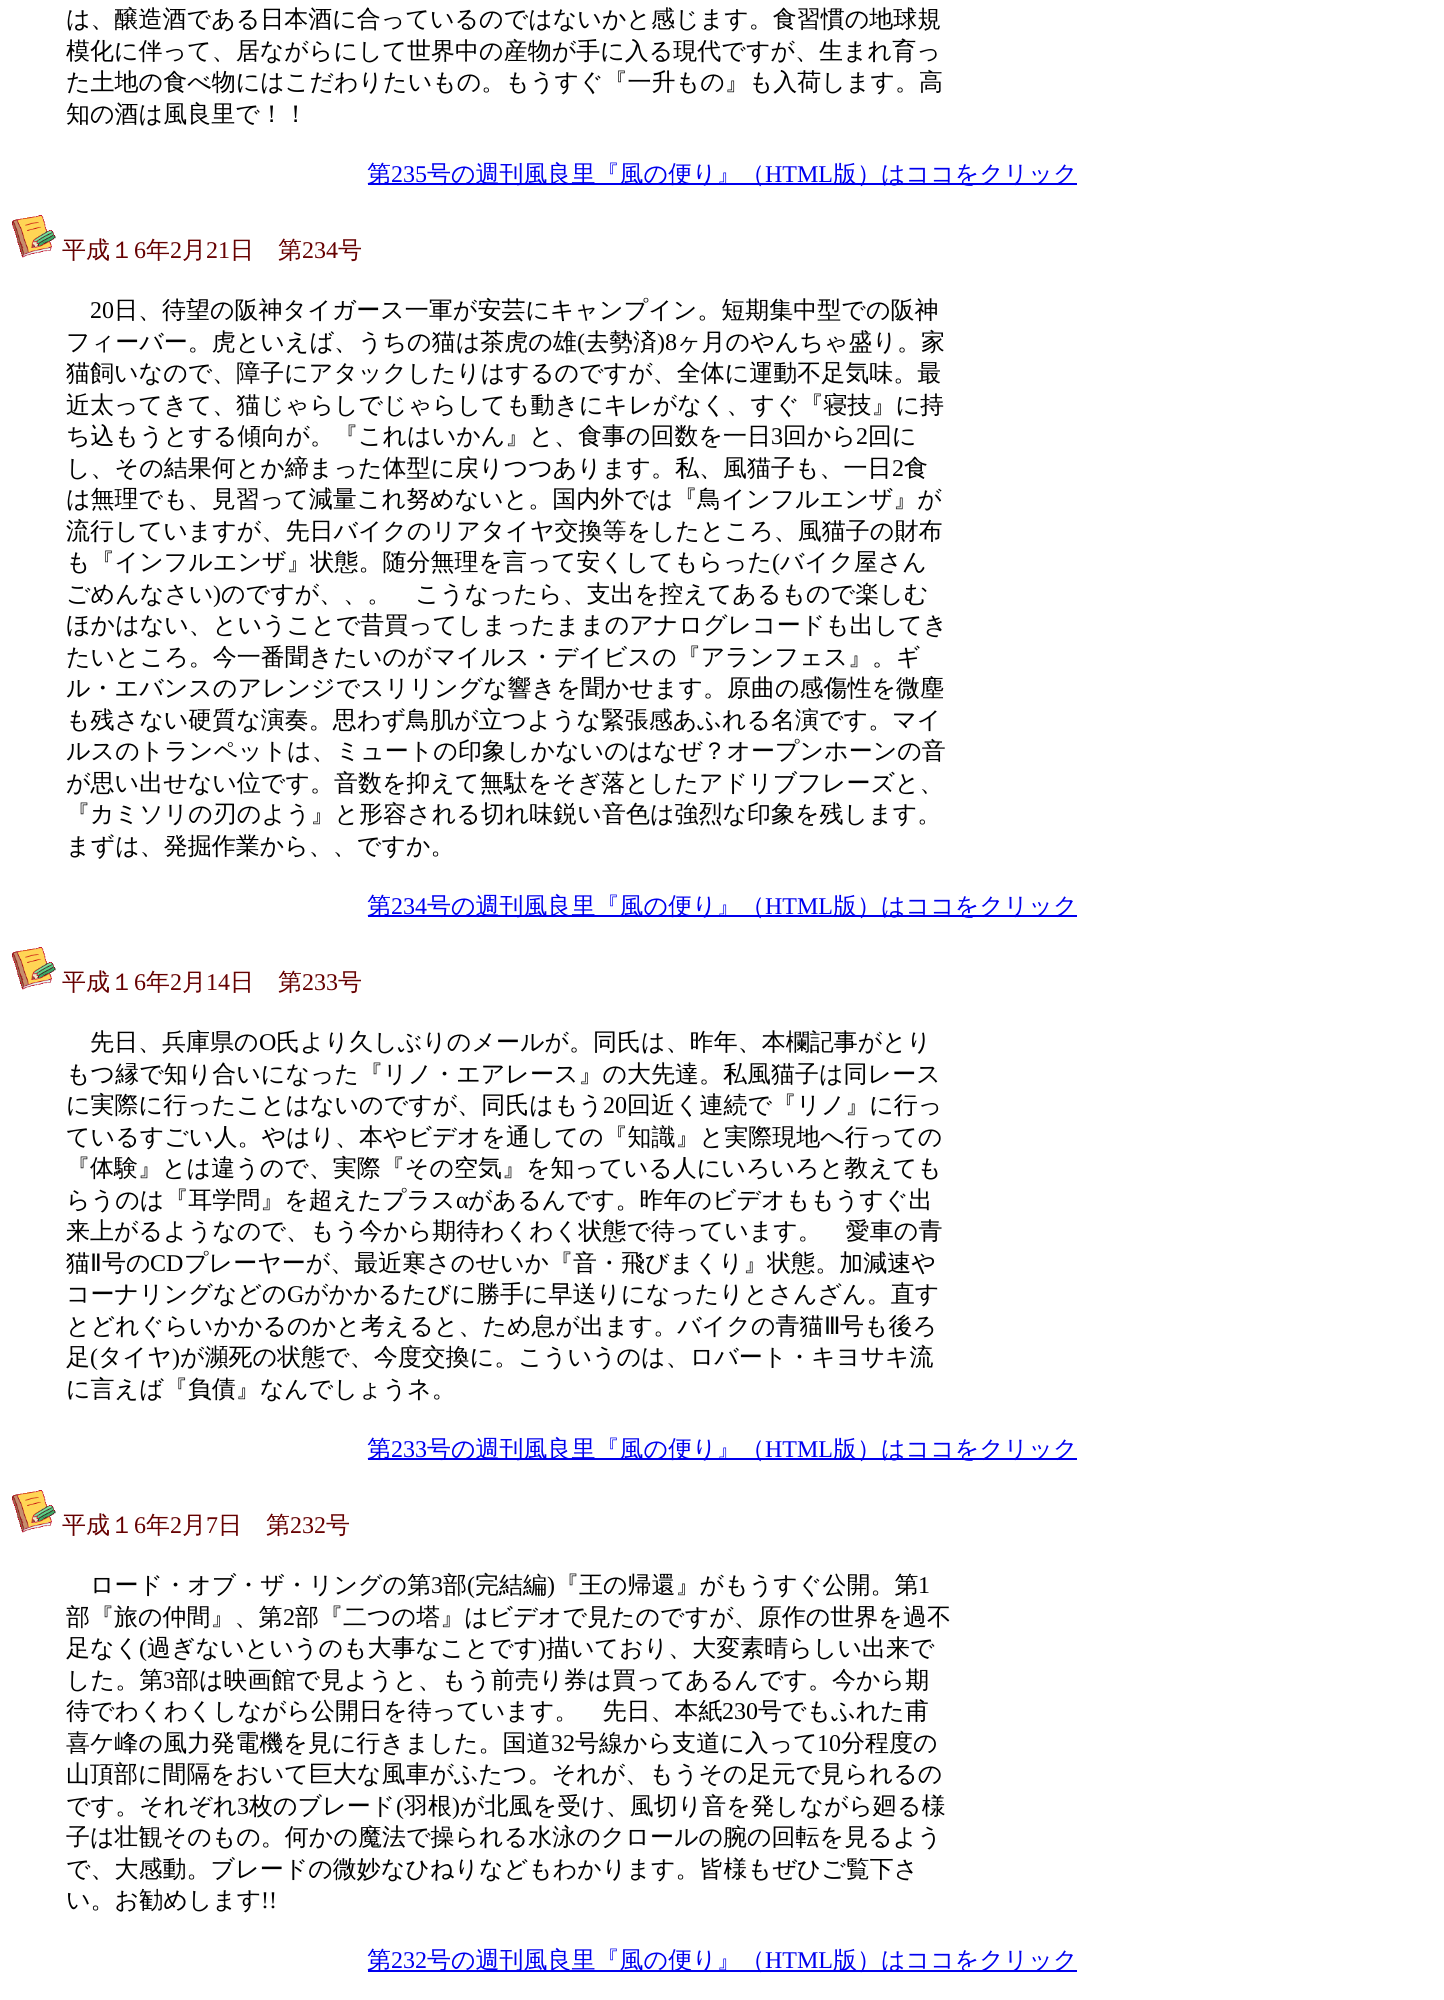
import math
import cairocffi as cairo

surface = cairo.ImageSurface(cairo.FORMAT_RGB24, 1444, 2000)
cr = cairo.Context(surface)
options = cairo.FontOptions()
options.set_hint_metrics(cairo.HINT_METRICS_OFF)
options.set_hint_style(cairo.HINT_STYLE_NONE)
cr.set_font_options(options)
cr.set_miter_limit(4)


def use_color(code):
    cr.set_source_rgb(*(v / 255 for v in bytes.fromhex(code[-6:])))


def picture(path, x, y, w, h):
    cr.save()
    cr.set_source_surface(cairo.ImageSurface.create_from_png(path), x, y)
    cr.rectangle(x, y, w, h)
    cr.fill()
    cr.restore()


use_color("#ffffff")
cr.paint()
cr.select_font_face("WenQuanYi Zen Hei Medium")
cr.set_font_size(24)
use_color("#000000")
cr.move_to(66, 27)
cr.show_text("は、醸造酒である日本酒に合っているのではないかと感じます。食習慣の地球規")
cr.move_to(66, 59)
cr.show_text("模化に伴って、居ながらにして世界中の産物が手に入る現代ですが、生まれ育っ")
cr.move_to(66, 90)
cr.show_text("た土地の食べ物にはこだわりたいもの。もうすぐ『一升もの』も入荷します。高")
cr.move_to(66, 122)
cr.show_text("知の酒は風良里で！！")
use_color("#0000ee")
cr.rectangle(368, 183, 709, 2)
cr.fill()
cr.move_to(367, 182)
cr.show_text("第")
cr.select_font_face("Liberation Serif")
cr.move_to(391, 182)
cr.show_text("235")
cr.select_font_face("WenQuanYi Zen Hei Medium")
cr.move_to(427, 182)
cr.show_text("号の週刊風良里『風の便り』（")
cr.select_font_face("Liberation Serif")
cr.move_to(765, 182)
cr.show_text("HTML")
cr.select_font_face("WenQuanYi Zen Hei Medium")
cr.move_to(833, 182)
cr.show_text("版）はココをクリック")
picture("img1.png", 12, 215, 44, 43)
use_color("#660000")
cr.move_to(62, 258)
cr.show_text("平成１")
cr.select_font_face("Liberation Serif")
cr.move_to(134, 258)
cr.show_text("6")
cr.select_font_face("WenQuanYi Zen Hei Medium")
cr.move_to(146, 258)
cr.show_text("年")
cr.select_font_face("Liberation Serif")
cr.move_to(170, 258)
cr.show_text("2")
cr.select_font_face("WenQuanYi Zen Hei Medium")
cr.move_to(182, 258)
cr.show_text("月")
cr.select_font_face("Liberation Serif")
cr.move_to(206, 258)
cr.show_text("21")
cr.select_font_face("WenQuanYi Zen Hei Medium")
cr.move_to(230, 258)
cr.show_text("日　第")
cr.select_font_face("Liberation Serif")
cr.move_to(302, 258)
cr.show_text("234")
cr.select_font_face("WenQuanYi Zen Hei Medium")
cr.move_to(338, 258)
cr.show_text("号")
cr.select_font_face("Liberation Serif")
use_color("#000000")
cr.move_to(90, 318)
cr.show_text("20")
cr.select_font_face("WenQuanYi Zen Hei Medium")
cr.move_to(114, 318)
cr.show_text("日、待望の阪神タイガース一軍が安芸にキャンプイン。短期集中型での阪神")
cr.move_to(66, 350)
cr.show_text("フィーバー。虎といえば、うちの猫は茶虎の雄")
cr.select_font_face("Liberation Serif")
cr.move_to(577, 350)
cr.show_text("(")
cr.select_font_face("WenQuanYi Zen Hei Medium")
cr.move_to(585, 350)
cr.show_text("去勢済")
cr.select_font_face("Liberation Serif")
cr.move_to(657, 350)
cr.show_text(")8")
cr.select_font_face("WenQuanYi Zen Hei Medium")
cr.move_to(677, 350)
cr.show_text("ヶ月のやんちゃ盛り。家")
cr.move_to(66, 381)
cr.show_text("猫飼いなので、障子にアタックしたりはするのですが、全体に運動不足気味。最")
cr.move_to(66, 413)
cr.show_text("近太ってきて、猫じゃらしでじゃらしても動きにキレがなく、すぐ『寝技』に持")
cr.move_to(66, 444)
cr.show_text("ち込もうとする傾向が。『これはいかん』と、食事の回数を一日")
cr.select_font_face("Liberation Serif")
cr.move_to(771, 444)
cr.show_text("3")
cr.select_font_face("WenQuanYi Zen Hei Medium")
cr.move_to(783, 444)
cr.show_text("回から")
cr.select_font_face("Liberation Serif")
cr.move_to(856, 444)
cr.show_text("2")
cr.select_font_face("WenQuanYi Zen Hei Medium")
cr.move_to(868, 444)
cr.show_text("回に")
cr.move_to(66, 476)
cr.show_text("し、その結果何とか締まった体型に戻りつつあります。私、風猫子も、一日")
cr.select_font_face("Liberation Serif")
cr.move_to(892, 476)
cr.show_text("2")
cr.select_font_face("WenQuanYi Zen Hei Medium")
cr.move_to(904, 476)
cr.show_text("食")
cr.move_to(66, 507)
cr.show_text("は無理でも、見習って減量これ努めないと。国内外では『鳥インフルエンザ』が")
cr.move_to(66, 539)
cr.show_text("流行していますが、先日バイクのリアタイヤ交換等をしたところ、風猫子の財布")
cr.move_to(66, 570)
cr.show_text("も『インフルエンザ』状態。随分無理を言って安くしてもらった")
cr.select_font_face("Liberation Serif")
cr.move_to(772, 570)
cr.show_text("(")
cr.select_font_face("WenQuanYi Zen Hei Medium")
cr.move_to(780, 570)
cr.show_text("バイク屋さん")
cr.move_to(66, 602)
cr.show_text("ごめんなさい")
cr.select_font_face("Liberation Serif")
cr.move_to(213, 602)
cr.show_text(")")
cr.select_font_face("WenQuanYi Zen Hei Medium")
cr.move_to(221, 602)
cr.show_text("のですが、、。　こうなったら、支出を控えてあるもので楽しむ")
cr.move_to(66, 633)
cr.show_text("ほかはない、ということで昔買ってしまったままのアナログレコードも出してき")
cr.move_to(66, 665)
cr.show_text("たいところ。今一番聞きたいのがマイルス・デイビスの『アランフェス』。ギ")
cr.move_to(66, 696)
cr.show_text("ル・エバンスのアレンジでスリリングな響きを聞かせます。原曲の感傷性を微塵")
cr.move_to(66, 728)
cr.show_text("も残さない硬質な演奏。思わず鳥肌が立つような緊張感あふれる名演です。マイ")
cr.move_to(66, 759)
cr.show_text("ルスのトランペットは、ミュートの印象しかないのはなぜ？オープンホーンの音")
cr.move_to(66, 791)
cr.show_text("が思い出せない位です。音数を抑えて無駄をそぎ落としたアドリブフレーズと、")
cr.move_to(66, 822)
cr.show_text("『カミソリの刃のよう』と形容される切れ味鋭い音色は強烈な印象を残します。")
cr.move_to(66, 854)
cr.show_text("まずは、発掘作業から、、ですか。")
use_color("#0000ee")
cr.rectangle(368, 915, 709, 2)
cr.fill()
cr.move_to(367, 914)
cr.show_text("第")
cr.select_font_face("Liberation Serif")
cr.move_to(391, 914)
cr.show_text("234")
cr.select_font_face("WenQuanYi Zen Hei Medium")
cr.move_to(427, 914)
cr.show_text("号の週刊風良里『風の便り』（")
cr.select_font_face("Liberation Serif")
cr.move_to(765, 914)
cr.show_text("HTML")
cr.select_font_face("WenQuanYi Zen Hei Medium")
cr.move_to(833, 914)
cr.show_text("版）はココをクリック")
picture("img1.png", 12, 947, 44, 43)
use_color("#660000")
cr.move_to(62, 990)
cr.show_text("平成１")
cr.select_font_face("Liberation Serif")
cr.move_to(134, 990)
cr.show_text("6")
cr.select_font_face("WenQuanYi Zen Hei Medium")
cr.move_to(146, 990)
cr.show_text("年")
cr.select_font_face("Liberation Serif")
cr.move_to(170, 990)
cr.show_text("2")
cr.select_font_face("WenQuanYi Zen Hei Medium")
cr.move_to(182, 990)
cr.show_text("月")
cr.select_font_face("Liberation Serif")
cr.move_to(206, 990)
cr.show_text("14")
cr.select_font_face("WenQuanYi Zen Hei Medium")
cr.move_to(230, 990)
cr.show_text("日　第")
cr.select_font_face("Liberation Serif")
cr.move_to(302, 990)
cr.show_text("233")
cr.select_font_face("WenQuanYi Zen Hei Medium")
cr.move_to(338, 990)
cr.show_text("号")
use_color("#000000")
cr.move_to(90, 1050)
cr.show_text("先日、兵庫県の")
cr.select_font_face("Liberation Serif")
cr.move_to(259, 1050)
cr.show_text("O")
cr.select_font_face("WenQuanYi Zen Hei Medium")
cr.move_to(276, 1050)
cr.show_text("氏より久しぶりのメールが。同氏は、昨年、本欄記事がとり")
cr.move_to(66, 1082)
cr.show_text("もつ縁で知り合いになった『リノ・エアレース』の大先達。私風猫子は同レース")
cr.move_to(66, 1113)
cr.show_text("に実際に行ったことはないのですが、同氏はもう")
cr.select_font_face("Liberation Serif")
cr.move_to(603, 1113)
cr.show_text("20")
cr.select_font_face("WenQuanYi Zen Hei Medium")
cr.move_to(627, 1113)
cr.show_text("回近く連続で『リノ』に行っ")
cr.move_to(66, 1145)
cr.show_text("ているすごい人。やはり、本やビデオを通しての『知識』と実際現地へ行っての")
cr.move_to(66, 1176)
cr.show_text("『体験』とは違うので、実際『その空気』を知っている人にいろいろと教えても")
cr.move_to(66, 1208)
cr.show_text("らうのは『耳学問』を超えたプラス")
cr.select_font_face("Liberation Serif")
cr.move_to(456, 1208)
cr.show_text("α")
cr.select_font_face("WenQuanYi Zen Hei Medium")
cr.move_to(468, 1208)
cr.show_text("があるんです。昨年のビデオももうすぐ出")
cr.move_to(66, 1239)
cr.show_text("来上がるようなので、もう今から期待わくわく状態で待っています。　愛車の青")
cr.move_to(66, 1271)
cr.show_text("猫")
cr.select_font_face("DejaVu Sans")
cr.move_to(90, 1271)
cr.show_text("Ⅱ")
cr.select_font_face("WenQuanYi Zen Hei Medium")
cr.move_to(102, 1271)
cr.show_text("号の")
cr.select_font_face("Liberation Serif")
cr.move_to(150, 1271)
cr.show_text("CD")
cr.select_font_face("WenQuanYi Zen Hei Medium")
cr.move_to(184, 1271)
cr.show_text("プレーヤーが、最近寒さのせいか『音・飛びまくり』状態。加減速や")
cr.move_to(66, 1302)
cr.show_text("コーナリングなどの")
cr.select_font_face("Liberation Serif")
cr.move_to(287, 1302)
cr.show_text("G")
cr.select_font_face("WenQuanYi Zen Hei Medium")
cr.move_to(304, 1302)
cr.show_text("がかかるたびに勝手に早送りになったりとさんざん。直す")
cr.move_to(66, 1334)
cr.show_text("とどれぐらいかかるのかと考えると、ため息が出ます。バイクの青猫")
cr.select_font_face("DejaVu Sans")
cr.move_to(824, 1334)
cr.show_text("Ⅲ")
cr.select_font_face("WenQuanYi Zen Hei Medium")
cr.move_to(840, 1334)
cr.show_text("号も後ろ")
cr.move_to(66, 1365)
cr.show_text("足")
cr.select_font_face("Liberation Serif")
cr.move_to(90, 1365)
cr.show_text("(")
cr.select_font_face("WenQuanYi Zen Hei Medium")
cr.move_to(98, 1365)
cr.show_text("タイヤ")
cr.select_font_face("Liberation Serif")
cr.move_to(172, 1365)
cr.show_text(")")
cr.select_font_face("WenQuanYi Zen Hei Medium")
cr.move_to(180, 1365)
cr.show_text("が瀕死の状態で、今度交換に。こういうのは、ロバート・キヨサキ流")
cr.move_to(66, 1397)
cr.show_text("に言えば『負債』なんでしょうネ。")
use_color("#0000ee")
cr.rectangle(368, 1458, 709, 2)
cr.fill()
cr.move_to(367, 1457)
cr.show_text("第")
cr.select_font_face("Liberation Serif")
cr.move_to(391, 1457)
cr.show_text("233")
cr.select_font_face("WenQuanYi Zen Hei Medium")
cr.move_to(427, 1457)
cr.show_text("号の週刊風良里『風の便り』（")
cr.select_font_face("Liberation Serif")
cr.move_to(765, 1457)
cr.show_text("HTML")
cr.select_font_face("WenQuanYi Zen Hei Medium")
cr.move_to(833, 1457)
cr.show_text("版）はココをクリック")
picture("img1.png", 12, 1490, 44, 43)
use_color("#660000")
cr.move_to(62, 1533)
cr.show_text("平成１")
cr.select_font_face("Liberation Serif")
cr.move_to(134, 1533)
cr.show_text("6")
cr.select_font_face("WenQuanYi Zen Hei Medium")
cr.move_to(146, 1533)
cr.show_text("年")
cr.select_font_face("Liberation Serif")
cr.move_to(170, 1533)
cr.show_text("2")
cr.select_font_face("WenQuanYi Zen Hei Medium")
cr.move_to(182, 1533)
cr.show_text("月")
cr.select_font_face("Liberation Serif")
cr.move_to(206, 1533)
cr.show_text("7")
cr.select_font_face("WenQuanYi Zen Hei Medium")
cr.move_to(218, 1533)
cr.show_text("日　第")
cr.select_font_face("Liberation Serif")
cr.move_to(290, 1533)
cr.show_text("232")
cr.select_font_face("WenQuanYi Zen Hei Medium")
cr.move_to(326, 1533)
cr.show_text("号")
use_color("#000000")
cr.move_to(90, 1593)
cr.show_text("ロード・オブ・ザ・リングの第")
cr.select_font_face("Liberation Serif")
cr.move_to(431, 1593)
cr.show_text("3")
cr.select_font_face("WenQuanYi Zen Hei Medium")
cr.move_to(443, 1593)
cr.show_text("部")
cr.select_font_face("Liberation Serif")
cr.move_to(467, 1593)
cr.show_text("(")
cr.select_font_face("WenQuanYi Zen Hei Medium")
cr.move_to(475, 1593)
cr.show_text("完結編")
cr.select_font_face("Liberation Serif")
cr.move_to(547, 1593)
cr.show_text(")")
cr.select_font_face("WenQuanYi Zen Hei Medium")
cr.move_to(555, 1593)
cr.show_text("『王の帰還』がもうすぐ公開。第")
cr.select_font_face("Liberation Serif")
cr.move_to(918, 1593)
cr.show_text("1")
cr.select_font_face("WenQuanYi Zen Hei Medium")
cr.move_to(66, 1625)
cr.show_text("部『旅の仲間』、第")
cr.select_font_face("Liberation Serif")
cr.move_to(283, 1625)
cr.show_text("2")
cr.select_font_face("WenQuanYi Zen Hei Medium")
cr.move_to(295, 1625)
cr.show_text("部『二つの塔』はビデオで見たのですが、原作の世界を過不")
cr.move_to(66, 1656)
cr.show_text("足なく")
cr.select_font_face("Liberation Serif")
cr.move_to(139, 1656)
cr.show_text("(")
cr.select_font_face("WenQuanYi Zen Hei Medium")
cr.move_to(147, 1656)
cr.show_text("過ぎないというのも大事なことです")
cr.select_font_face("Liberation Serif")
cr.move_to(538, 1656)
cr.show_text(")")
cr.select_font_face("WenQuanYi Zen Hei Medium")
cr.move_to(546, 1656)
cr.show_text("描いており、大変素晴らしい出来で")
cr.move_to(66, 1688)
cr.show_text("した。第")
cr.select_font_face("Liberation Serif")
cr.move_to(163, 1688)
cr.show_text("3")
cr.select_font_face("WenQuanYi Zen Hei Medium")
cr.move_to(175, 1688)
cr.show_text("部は映画館で見ようと、もう前売り券は買ってあるんです。今から期")
cr.move_to(66, 1719)
cr.show_text("待でわくわくしながら公開日を待っています。　先日、本紙")
cr.select_font_face("Liberation Serif")
cr.move_to(722, 1719)
cr.show_text("230")
cr.select_font_face("WenQuanYi Zen Hei Medium")
cr.move_to(758, 1719)
cr.show_text("号でもふれた甫")
cr.move_to(66, 1751)
cr.show_text("喜ケ峰の風力発電機を見に行きました。国道")
cr.select_font_face("Liberation Serif")
cr.move_to(551, 1751)
cr.show_text("32")
cr.select_font_face("WenQuanYi Zen Hei Medium")
cr.move_to(575, 1751)
cr.show_text("号線から支道に入って")
cr.select_font_face("Liberation Serif")
cr.move_to(817, 1751)
cr.show_text("10")
cr.select_font_face("WenQuanYi Zen Hei Medium")
cr.move_to(841, 1751)
cr.show_text("分程度の")
cr.move_to(66, 1782)
cr.show_text("山頂部に間隔をおいて巨大な風車がふたつ。それが、もうその足元で見られるの")
cr.move_to(66, 1814)
cr.show_text("です。それぞれ")
cr.select_font_face("Liberation Serif")
cr.move_to(237, 1814)
cr.show_text("3")
cr.select_font_face("WenQuanYi Zen Hei Medium")
cr.move_to(249, 1814)
cr.show_text("枚のブレード")
cr.select_font_face("Liberation Serif")
cr.move_to(396, 1814)
cr.show_text("(")
cr.select_font_face("WenQuanYi Zen Hei Medium")
cr.move_to(404, 1814)
cr.show_text("羽根")
cr.select_font_face("Liberation Serif")
cr.move_to(452, 1814)
cr.show_text(")")
cr.select_font_face("WenQuanYi Zen Hei Medium")
cr.move_to(460, 1814)
cr.show_text("が北風を受け、風切り音を発しながら廻る様")
cr.move_to(66, 1845)
cr.show_text("子は壮観そのもの。何かの魔法で操られる水泳のクロールの腕の回転を見るよう")
cr.move_to(66, 1877)
cr.show_text("で、大感動。ブレードの微妙なひねりなどもわかります。皆様もぜひご覧下さ")
cr.move_to(66, 1908)
cr.show_text("い。お勧めします")
cr.select_font_face("Liberation Serif")
cr.move_to(261, 1908)
cr.show_text("!!")
use_color("#0000ee")
cr.rectangle(368, 1970, 709, 2)
cr.fill()
cr.select_font_face("WenQuanYi Zen Hei Medium")
cr.move_to(367, 1968)
cr.show_text("第")
cr.select_font_face("Liberation Serif")
cr.move_to(391, 1968)
cr.show_text("232")
cr.select_font_face("WenQuanYi Zen Hei Medium")
cr.move_to(427, 1968)
cr.show_text("号の週刊風良里『風の便り』（")
cr.select_font_face("Liberation Serif")
cr.move_to(765, 1968)
cr.show_text("HTML")
cr.select_font_face("WenQuanYi Zen Hei Medium")
cr.move_to(833, 1968)
cr.show_text("版）はココをクリック")
surface.write_to_png("result.png")
